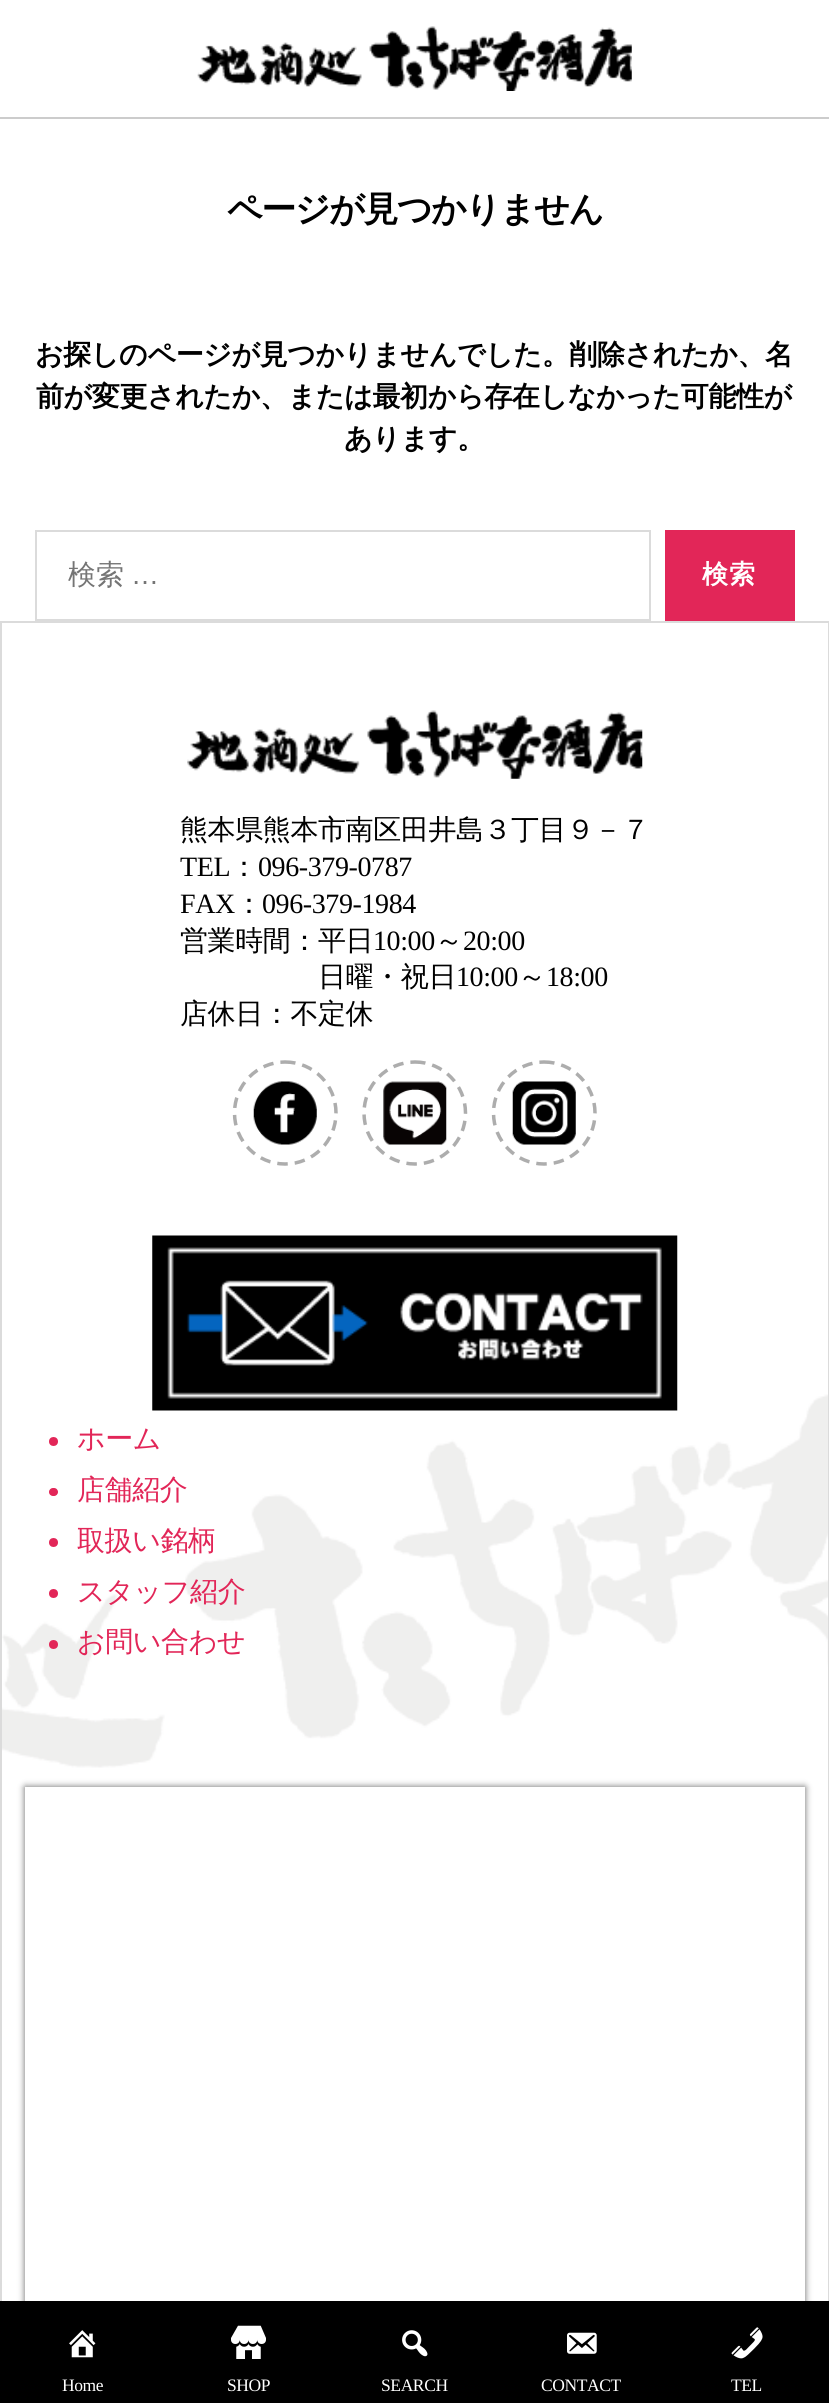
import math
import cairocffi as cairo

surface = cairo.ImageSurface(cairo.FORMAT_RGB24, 829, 2403)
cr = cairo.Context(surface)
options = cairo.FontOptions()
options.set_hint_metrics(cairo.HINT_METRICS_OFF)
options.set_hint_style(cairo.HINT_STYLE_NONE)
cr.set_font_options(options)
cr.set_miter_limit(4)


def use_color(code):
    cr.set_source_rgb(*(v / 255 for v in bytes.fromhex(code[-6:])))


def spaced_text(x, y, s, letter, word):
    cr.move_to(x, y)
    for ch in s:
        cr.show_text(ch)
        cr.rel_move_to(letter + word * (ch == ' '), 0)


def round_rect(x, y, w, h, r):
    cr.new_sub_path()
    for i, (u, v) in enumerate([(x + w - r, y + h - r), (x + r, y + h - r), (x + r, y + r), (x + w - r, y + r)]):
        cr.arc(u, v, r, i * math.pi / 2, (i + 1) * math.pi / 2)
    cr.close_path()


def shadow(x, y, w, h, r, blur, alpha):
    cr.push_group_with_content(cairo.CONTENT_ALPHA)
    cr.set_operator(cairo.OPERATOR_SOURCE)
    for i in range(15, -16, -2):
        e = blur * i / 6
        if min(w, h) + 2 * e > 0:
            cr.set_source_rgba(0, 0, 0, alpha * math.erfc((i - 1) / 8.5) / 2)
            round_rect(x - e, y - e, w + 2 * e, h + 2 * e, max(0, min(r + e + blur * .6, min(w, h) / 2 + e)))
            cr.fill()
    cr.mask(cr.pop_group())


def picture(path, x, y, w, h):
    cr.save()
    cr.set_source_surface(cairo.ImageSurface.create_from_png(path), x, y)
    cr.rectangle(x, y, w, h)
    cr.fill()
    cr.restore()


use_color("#ffffff")
cr.paint()
use_color("#cccccc")
cr.rectangle(0, 117, 829, 2)
cr.fill()
picture("img1.png", 197, 26, 435, 65)
cr.select_font_face("WenQuanYi Zen Hei", cairo.FONT_SLANT_NORMAL, cairo.FONT_WEIGHT_BOLD)
cr.set_font_size(35)
use_color("#000000")
spaced_text(227, 221, "ページが見つかりません", -1.5, 0)
cr.set_font_size(28)
spaced_text(35, 364, "お探しのページが見つかりませんでした。削除されたか、名", -0.4, 0)
spaced_text(36, 406, "前が変更されたか、または最初から存在しなかった可能性が", -0.4, 0)
spaced_text(344, 448, "あります。", -0.4, 0)
cr.rectangle(36, 531, 614, 89)
use_color("#dbdbdb")
cr.stroke()
cr.select_font_face("WenQuanYi Zen Hei Medium")
use_color("#757575")
cr.move_to(68, 584)
cr.show_text("検索")
cr.select_font_face("Liberation Sans")
cr.move_to(131, 584)
cr.show_text("…")
use_color("#e22658")
cr.rectangle(665, 530, 130, 91)
cr.fill()
cr.select_font_face("WenQuanYi Zen Hei", cairo.FONT_SLANT_NORMAL, cairo.FONT_WEIGHT_BOLD)
cr.set_font_size(26)
use_color("#ffffff")
spaced_text(702, 583, "検索", 1, 0)
picture("img2.png", 2, 1394, 826, 374)
cr.rectangle(1, 622, 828, 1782)
use_color("#dbdbdb")
cr.stroke()
picture("img3.png", 187, 710, 456, 69)
cr.select_font_face("WenQuanYi Zen Hei Medium")
cr.set_font_size(28)
use_color("#000000")
spaced_text(180, 839, "熊本県熊本市南区田井島３丁目９－７", -0.4, 0)
cr.select_font_face("Liberation Serif")
spaced_text(180, 876, "TEL", -0.4, 0)
cr.select_font_face("WenQuanYi Zen Hei Medium")
spaced_text(230, 876, "：", -0.4, 0)
cr.select_font_face("Liberation Serif")
spaced_text(258, 876, "096-379-0787", -0.4, 0)
spaced_text(180, 913, "FAX", -0.4, 0)
cr.select_font_face("WenQuanYi Zen Hei Medium")
spaced_text(235, 913, "：", -0.4, 0)
cr.select_font_face("Liberation Serif")
spaced_text(262, 913, "096-379-1984", -0.4, 0)
cr.select_font_face("WenQuanYi Zen Hei Medium")
spaced_text(180, 950, "営業時間：平日", -0.4, 0)
cr.select_font_face("Liberation Serif")
spaced_text(373, 950, "10:00", -0.4, 0)
cr.select_font_face("WenQuanYi Zen Hei Medium")
spaced_text(435, 950, "～", -0.4, 0)
cr.select_font_face("Liberation Serif")
spaced_text(463, 950, "20:00", -0.4, 0)
cr.select_font_face("WenQuanYi Zen Hei Medium")
spaced_text(318, 986, "日曜・祝日", -0.4, 0)
cr.select_font_face("Liberation Serif")
spaced_text(456, 986, "10:00", -0.4, 0)
cr.select_font_face("WenQuanYi Zen Hei Medium")
spaced_text(518, 986, "～", -0.4, 0)
cr.select_font_face("Liberation Serif")
spaced_text(546, 986, "18:00", -0.4, 0)
cr.select_font_face("WenQuanYi Zen Hei Medium")
spaced_text(180, 1023, "店休日：不定休", -0.4, 0)
cr.new_path()
cr.move_to(285, 1062)
cr.curve_to(313.5, 1062, 336, 1085, 336, 1113)
cr.curve_to(336, 1141, 313.5, 1164, 285, 1164)
cr.curve_to(257, 1164, 234.5, 1141, 234.5, 1113)
cr.curve_to(234.5, 1085, 257, 1062, 285, 1062)
cr.close_path()
use_color("#adadad")
cr.set_line_width(3.5)
cr.set_dash([10.5, 7])
cr.stroke()
picture("img4.png", 253, 1081, 64, 64)
cr.new_path()
cr.move_to(415, 1062)
cr.curve_to(443, 1062, 465.5, 1085, 465.5, 1113)
cr.curve_to(465.5, 1141, 443, 1164, 415, 1164)
cr.curve_to(386.5, 1164, 364, 1141, 364, 1113)
cr.curve_to(364, 1085, 386.5, 1062, 415, 1062)
cr.close_path()
cr.stroke()
picture("img5.png", 383, 1081, 64, 64)
cr.new_path()
cr.move_to(544, 1062)
cr.curve_to(572.5, 1062, 595, 1085, 595, 1113)
cr.curve_to(595, 1141, 572.5, 1164, 544, 1164)
cr.curve_to(516, 1164, 493.5, 1141, 493.5, 1113)
cr.curve_to(493.5, 1085, 516, 1062, 544, 1062)
cr.close_path()
cr.stroke()
picture("img6.png", 512, 1081, 64, 64)
picture("img7.png", 152, 1235, 526, 176)
use_color("#e22658")
cr.arc(53.5, 1441.5, 4.5, 0, 2 * math.pi)
cr.fill()
spaced_text(77, 1448, "ホーム", -0.4, 0)
round_rect(49, 1488, 9, 8, 4)
cr.fill()
spaced_text(77, 1499, "店舗紹介", -0.4, 0)
cr.new_path()
cr.arc(53.5, 1542.5, 4.5, 0, 2 * math.pi)
cr.fill()
spaced_text(77, 1550, "取扱い銘柄", -0.4, 0)
cr.new_path()
cr.arc(53.5, 1593.5, 4.5, 0, 2 * math.pi)
cr.fill()
spaced_text(77, 1601, "スタッフ紹介", -0.4, 0)
cr.new_path()
cr.arc(53.5, 1644.5, 4.5, 0, 2 * math.pi)
cr.fill()
spaced_text(77, 1651, "お問い合わせ", -0.4, 0)
cr.save()
cr.set_fill_rule(cairo.FILL_RULE_EVEN_ODD)
cr.new_path()
cr.move_to(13, 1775)
cr.line_to(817, 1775)
cr.line_to(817, 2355)
cr.line_to(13, 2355)
cr.close_path()
cr.move_to(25, 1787)
cr.line_to(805, 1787)
cr.line_to(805, 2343)
cr.line_to(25, 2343)
cr.close_path()
cr.clip()
use_color("#000000")
shadow(25, 1787, 780, 556, 0, 3.5, 0.6)
cr.restore()
use_color("#000000")
cr.rectangle(0, 2301, 829, 102)
cr.fill()
picture("img8.png", 69, 2330, 27, 28)
cr.select_font_face("Liberation Serif")
cr.set_font_size(17.5)
use_color("#ffffff")
spaced_text(62, 2391, "Home", -0.4, 0)
picture("img9.png", 231, 2325, 35, 34)
spaced_text(227, 2391, "SHOP", -0.4, 0)
picture("img10.png", 402, 2330, 26, 27)
spaced_text(381, 2391, "SEARCH", -0.4, 0)
picture("img11.png", 567, 2332, 30, 22)
spaced_text(541, 2391, "CONTACT", -0.4, 0)
picture("img12.png", 731, 2327, 32, 32)
spaced_text(731, 2391, "TEL", -0.4, 0)
surface.write_to_png("result.png")
